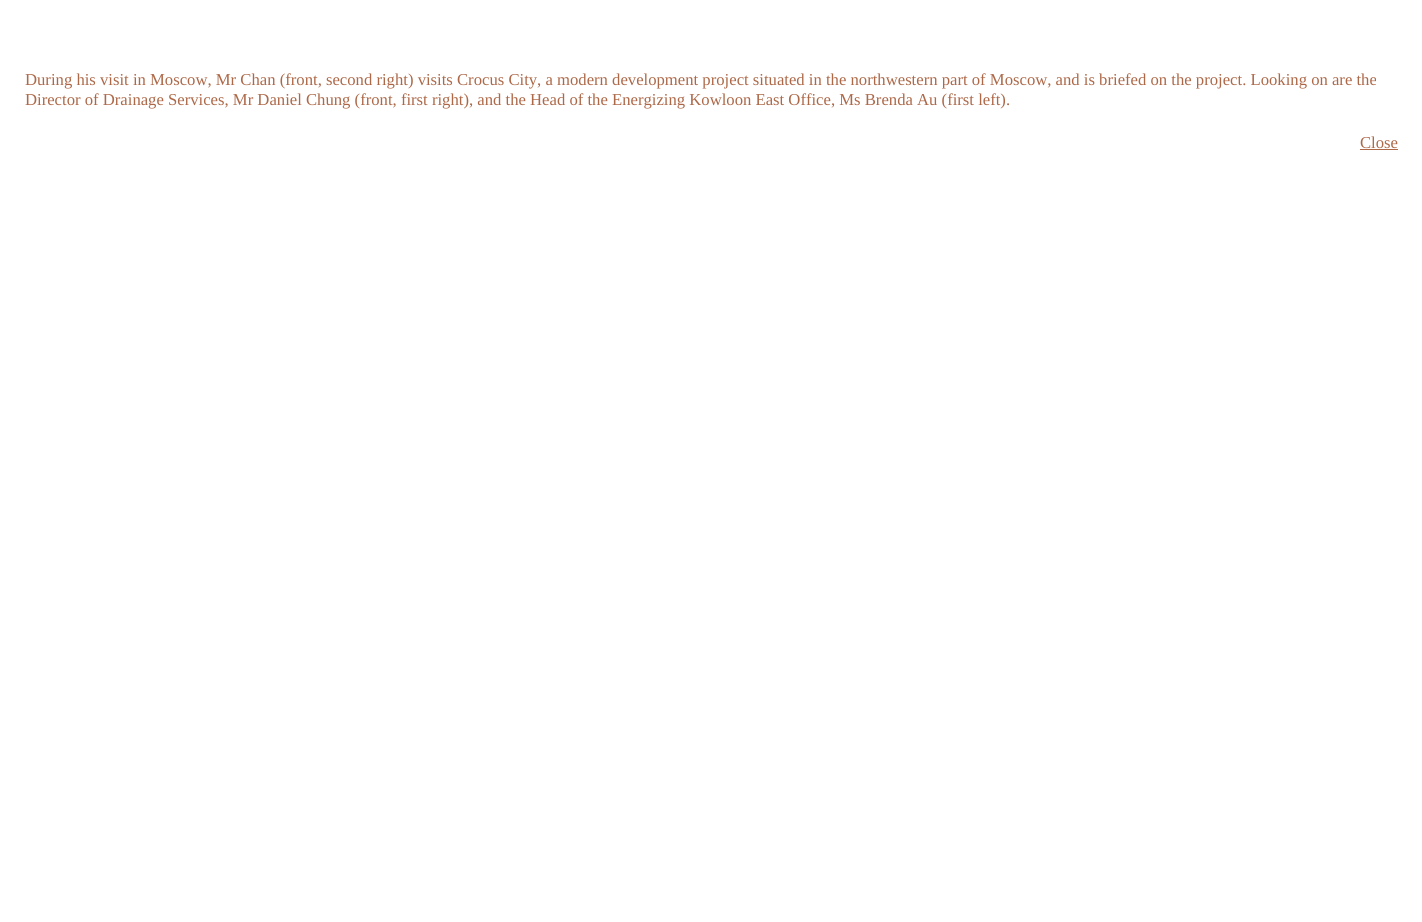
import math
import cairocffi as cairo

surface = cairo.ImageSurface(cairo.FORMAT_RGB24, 1422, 922)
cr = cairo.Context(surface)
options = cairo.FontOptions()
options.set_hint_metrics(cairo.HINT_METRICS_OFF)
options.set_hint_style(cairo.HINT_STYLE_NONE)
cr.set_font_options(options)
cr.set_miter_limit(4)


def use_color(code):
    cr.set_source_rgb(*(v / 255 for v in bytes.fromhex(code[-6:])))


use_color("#ffffff")
cr.paint()
cr.select_font_face("Liberation Serif")
cr.set_font_size(16.67)
use_color("#ad6848")
cr.move_to(25, 85)
cr.show_text("During his visit in Moscow, Mr Chan (front, second right) visits Crocus City, a modern development project situated in the northwestern part of Moscow, and is briefed on the project. Looking on are the")
cr.move_to(25, 105)
cr.show_text("Director of Drainage Services, Mr Daniel Chung (front, first right), and the Head of the Energizing Kowloon East Office, Ms Brenda Au (first left).")
cr.move_to(1360, 148)
cr.show_text("Close")
cr.rectangle(1360, 149, 38, 1)
cr.fill()
surface.write_to_png("result.png")
